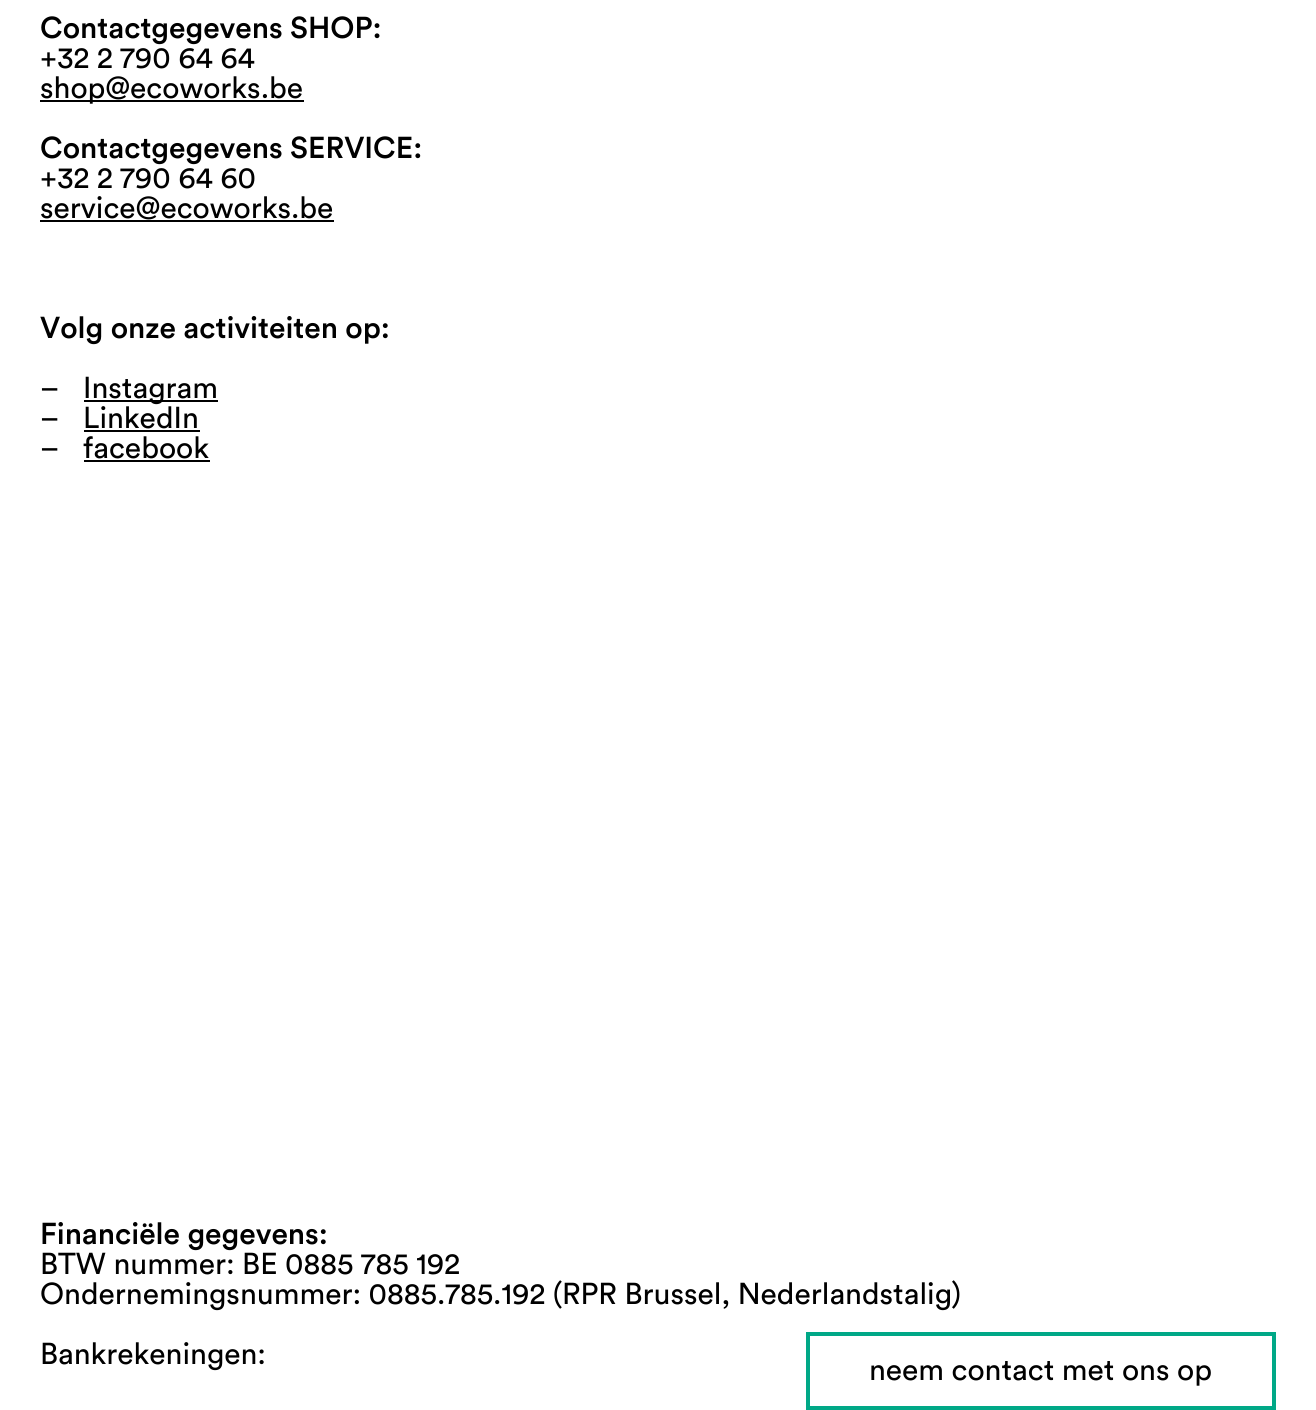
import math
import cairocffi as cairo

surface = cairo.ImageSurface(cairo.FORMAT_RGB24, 1316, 1410)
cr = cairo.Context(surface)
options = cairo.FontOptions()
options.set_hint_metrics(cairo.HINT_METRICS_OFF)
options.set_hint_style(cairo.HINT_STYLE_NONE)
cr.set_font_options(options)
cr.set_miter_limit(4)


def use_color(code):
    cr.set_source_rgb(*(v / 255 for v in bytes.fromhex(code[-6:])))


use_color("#ffffff")
cr.paint()
cr.select_font_face("Circular Medium")
cr.set_font_size(30)
use_color("#000000")
cr.move_to(40, 38)
cr.show_text("Contactgegevens SHOP:")
cr.select_font_face("Circular")
cr.move_to(40, 68)
cr.show_text("+32 2 790 64 64")
cr.rectangle(40, 100, 264, 2)
cr.fill()
cr.move_to(40, 98)
cr.show_text("shop@ecoworks.be")
cr.select_font_face("Circular Medium")
cr.move_to(40, 158)
cr.show_text("Contactgegevens SERVICE:")
cr.select_font_face("Circular")
cr.move_to(40, 188)
cr.show_text("+32 2 790 64 60")
cr.move_to(40, 218)
cr.show_text("service@ecoworks.be")
cr.rectangle(40, 220, 294, 2)
cr.fill()
cr.select_font_face("Circular Medium")
cr.move_to(40, 338)
cr.show_text("Volg onze activiteiten op:")
cr.select_font_face("Circular")
cr.move_to(40, 398)
cr.show_text("–")
cr.rectangle(84, 400, 134, 2)
cr.fill()
cr.move_to(83, 398)
cr.show_text("Instagram")
cr.move_to(40, 428)
cr.show_text("–")
cr.move_to(83, 428)
cr.show_text("LinkedIn")
cr.rectangle(84, 430, 116, 2)
cr.fill()
cr.move_to(40, 458)
cr.show_text("–")
cr.move_to(83, 458)
cr.show_text("facebook")
cr.rectangle(84, 460, 126, 2)
cr.fill()
cr.select_font_face("Circular Medium")
cr.move_to(40, 1244)
cr.show_text("Financiële gegevens:")
cr.select_font_face("Circular")
cr.move_to(40, 1274)
cr.show_text("BTW nummer: BE 0885 785 192")
cr.move_to(40, 1304)
cr.show_text("Ondernemingsnummer: 0885.785.192 (RPR Brussel, Nederlandstalig)")
cr.move_to(40, 1364)
cr.show_text("Bankrekeningen:")
cr.rectangle(808, 1334, 466, 74)
use_color("#00a887")
cr.set_line_width(4)
cr.stroke()
use_color("#000000")
cr.move_to(869, 1380)
cr.show_text("neem contact met ons op")
surface.write_to_png("result.png")
